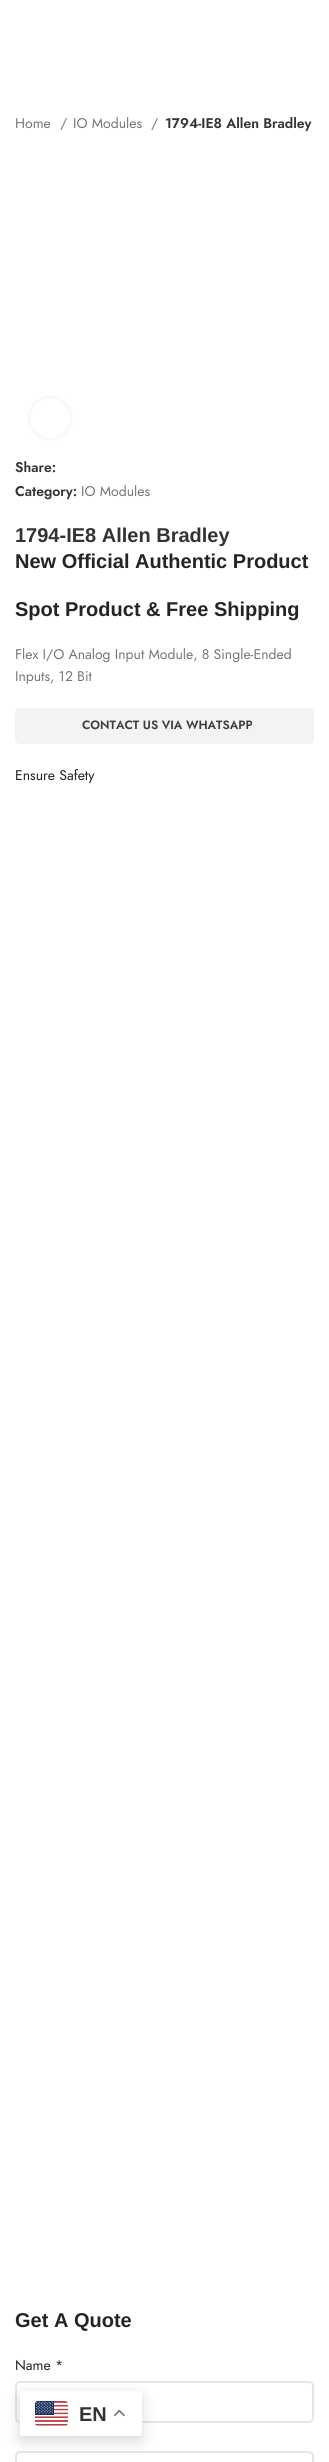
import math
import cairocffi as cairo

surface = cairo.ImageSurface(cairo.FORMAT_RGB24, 329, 2462)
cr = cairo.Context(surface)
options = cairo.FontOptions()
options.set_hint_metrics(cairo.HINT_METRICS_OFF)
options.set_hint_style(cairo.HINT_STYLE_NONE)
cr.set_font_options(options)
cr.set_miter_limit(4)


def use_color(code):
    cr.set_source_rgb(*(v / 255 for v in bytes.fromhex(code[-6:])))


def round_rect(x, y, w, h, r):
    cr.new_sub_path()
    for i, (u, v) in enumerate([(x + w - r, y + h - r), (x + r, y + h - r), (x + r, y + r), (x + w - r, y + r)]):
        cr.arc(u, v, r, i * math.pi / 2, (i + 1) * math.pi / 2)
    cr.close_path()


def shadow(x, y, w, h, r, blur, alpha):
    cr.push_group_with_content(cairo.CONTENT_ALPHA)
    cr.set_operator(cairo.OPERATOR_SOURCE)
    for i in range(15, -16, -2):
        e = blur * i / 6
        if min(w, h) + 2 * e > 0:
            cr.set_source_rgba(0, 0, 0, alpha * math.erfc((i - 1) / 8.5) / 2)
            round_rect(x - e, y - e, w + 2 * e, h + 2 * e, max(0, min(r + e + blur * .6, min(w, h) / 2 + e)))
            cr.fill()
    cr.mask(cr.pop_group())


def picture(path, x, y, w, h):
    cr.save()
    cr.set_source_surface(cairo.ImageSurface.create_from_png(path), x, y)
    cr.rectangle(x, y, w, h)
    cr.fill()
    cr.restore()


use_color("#ffffff")
cr.paint()
cr.select_font_face("Jost")
cr.set_font_size(14)
use_color("#777777")
cr.move_to(15, 128)
cr.show_text("Home")
cr.move_to(60, 128)
cr.show_text("/")
cr.move_to(73, 128)
cr.show_text("IO Modules")
cr.move_to(151, 128)
cr.show_text("/")
cr.select_font_face("Jost SemiBold")
use_color("#333333")
cr.move_to(165, 128)
cr.show_text("1794-IE8 Allen Bradley")
use_color("#000000")
shadow(30, 398, 40, 40, 20, 2.5, 0.08)
use_color("#ffffff")
cr.arc(50, 418, 20, 0, 2 * math.pi)
cr.fill()
use_color("#333333")
cr.move_to(15, 472)
cr.show_text("Share:")
cr.move_to(15, 496)
cr.show_text("Category:")
cr.select_font_face("Jost")
use_color("#777777")
cr.move_to(81, 496)
cr.show_text("IO Modules")
cr.select_font_face("Liberation Sans", cairo.FONT_SLANT_NORMAL, cairo.FONT_WEIGHT_BOLD)
cr.set_font_size(20)
use_color("#333333")
cr.move_to(15, 542)
cr.show_text("1794-IE8 Allen Bradley")
use_color("#242424")
cr.move_to(15, 568)
cr.show_text("New Official Authentic Product")
cr.move_to(15, 616)
cr.show_text("Spot Product & Free Shipping")
cr.select_font_face("Jost")
cr.set_font_size(14)
use_color("#777777")
cr.move_to(15, 659)
cr.show_text("Flex I/O Analog Input Module, 8 Single-Ended")
cr.move_to(15, 681)
cr.show_text("Inputs, 12 Bit")
use_color("#f3f3f3")
round_rect(15, 708, 299, 36, 5)
cr.fill()
cr.select_font_face("Jost SemiBold")
cr.set_font_size(12)
use_color("#3e3e3e")
cr.move_to(82, 729)
cr.show_text("CONTACT US VIA WHATSAPP")
cr.select_font_face("Jost")
cr.set_font_size(14)
use_color("#242424")
cr.move_to(15, 780)
cr.show_text("Ensure Safety")
cr.select_font_face("Liberation Sans", cairo.FONT_SLANT_NORMAL, cairo.FONT_WEIGHT_BOLD)
cr.set_font_size(20)
cr.move_to(15, 2327)
cr.show_text("Get A Quote")
cr.select_font_face("Jost")
cr.set_font_size(14)
cr.move_to(15, 2370)
cr.show_text("Name *")
round_rect(16, 2382, 297, 40, 4)
use_color("#e6e6e6")
cr.stroke()
round_rect(16, 2452, 297, 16, 4)
cr.stroke()
use_color("#000000")
shadow(20, 2396, 122, 45, 2, 7.5, 0.15)
use_color("#ffffff")
round_rect(20, 2391, 122, 45, 2)
cr.fill()
picture("img1.png", 35, 2401, 33, 25)
cr.select_font_face("Liberation Sans", cairo.FONT_SLANT_NORMAL, cairo.FONT_WEIGHT_BOLD)
cr.set_font_size(20)
use_color("#333333")
cr.move_to(79, 2421)
cr.show_text("EN")
picture("img2.png", 114, 2409, 11, 8)
surface.write_to_png("result.png")
